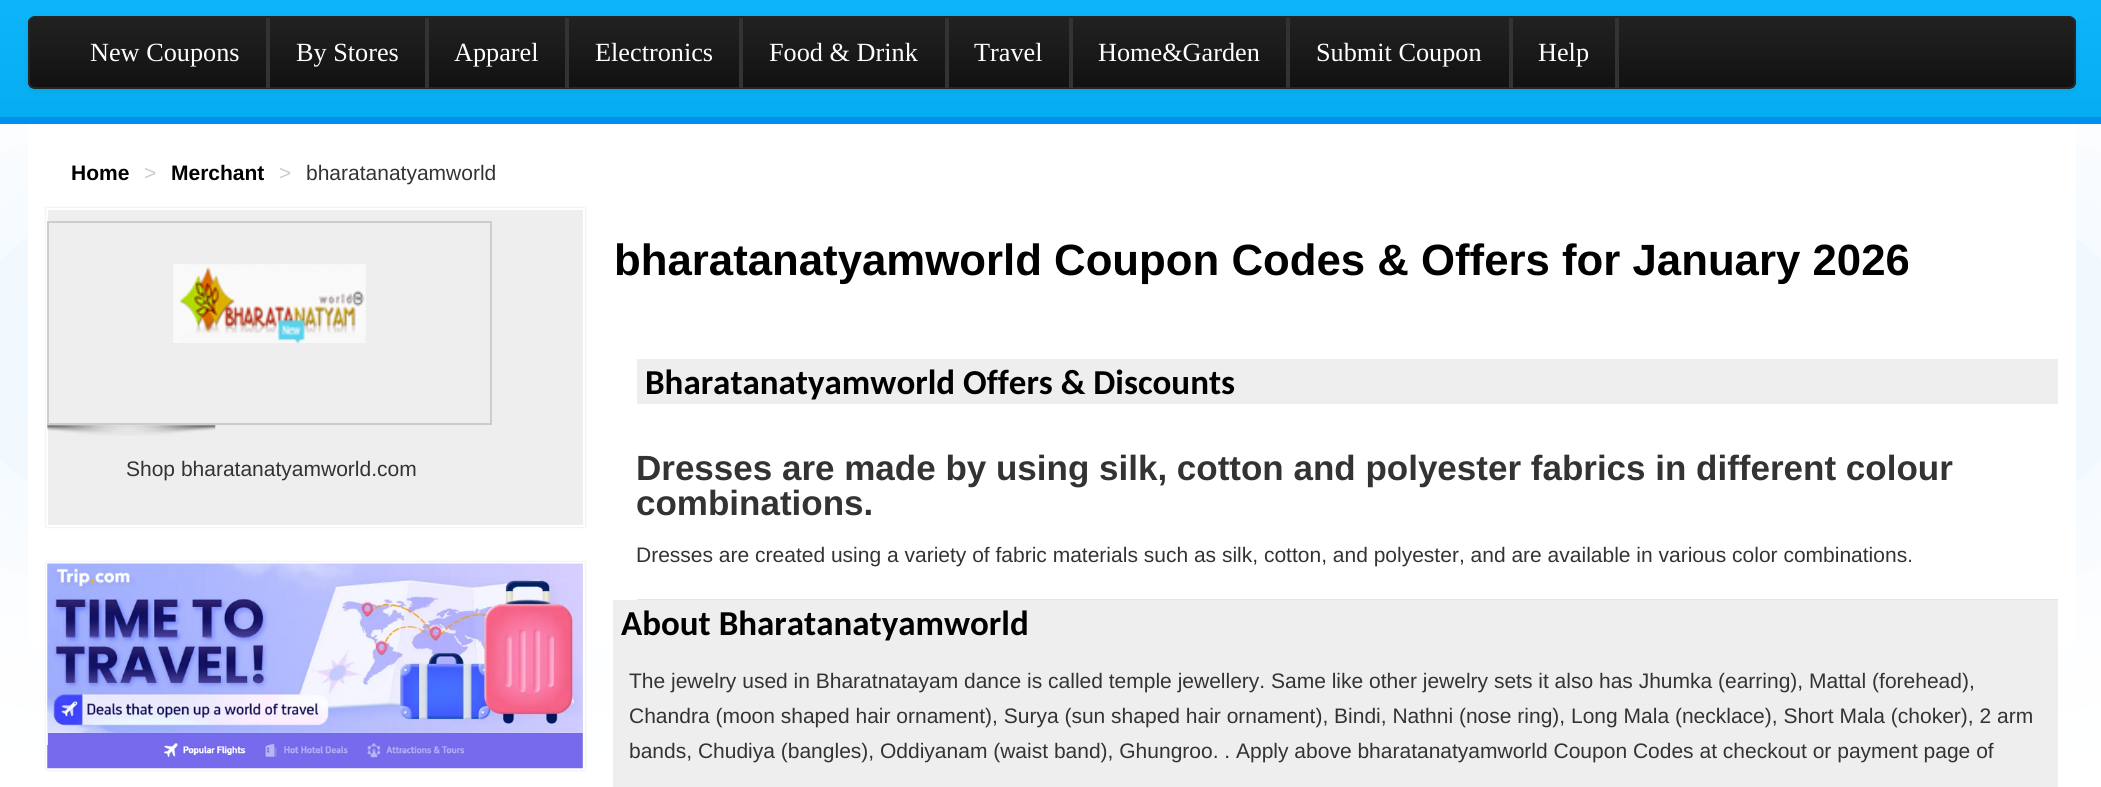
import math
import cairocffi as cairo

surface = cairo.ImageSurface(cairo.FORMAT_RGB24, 2101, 787)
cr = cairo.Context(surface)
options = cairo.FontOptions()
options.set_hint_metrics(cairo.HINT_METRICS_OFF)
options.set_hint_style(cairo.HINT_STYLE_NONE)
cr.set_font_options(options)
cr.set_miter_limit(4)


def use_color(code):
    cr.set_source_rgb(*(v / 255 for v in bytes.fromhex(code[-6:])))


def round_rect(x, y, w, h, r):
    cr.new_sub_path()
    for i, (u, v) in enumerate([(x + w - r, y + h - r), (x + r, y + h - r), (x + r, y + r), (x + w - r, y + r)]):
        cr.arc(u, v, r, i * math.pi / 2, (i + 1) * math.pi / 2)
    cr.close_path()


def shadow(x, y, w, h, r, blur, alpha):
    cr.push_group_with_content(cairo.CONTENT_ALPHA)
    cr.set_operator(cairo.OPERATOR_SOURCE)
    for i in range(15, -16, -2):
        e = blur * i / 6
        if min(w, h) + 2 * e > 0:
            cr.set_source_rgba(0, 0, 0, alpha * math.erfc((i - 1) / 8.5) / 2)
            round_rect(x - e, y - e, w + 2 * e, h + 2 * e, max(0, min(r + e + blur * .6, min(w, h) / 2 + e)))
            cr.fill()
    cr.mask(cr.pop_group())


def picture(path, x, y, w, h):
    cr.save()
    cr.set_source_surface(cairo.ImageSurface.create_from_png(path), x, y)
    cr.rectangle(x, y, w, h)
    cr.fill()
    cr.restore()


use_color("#ffffff")
cr.paint()
use_color("#e4f4ff")
shadow(0, 245, 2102, 229, 0, 131, 1)
gradient = cairo.LinearGradient(1051, -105, 1051, 117)
gradient.add_color_stop_rgba(0, 0.09, 0.737, 1, 1)
gradient.add_color_stop_rgba(1, 0.02, 0.678, 0.941, 1)
cr.set_source(gradient)
cr.rectangle(0, 0, 2101, 117)
cr.fill()
use_color("#0091ee")
cr.rectangle(0, 117, 2101, 7)
cr.fill()
use_color("#000000")
shadow(28, 18, 2048, 73, 7, 3.5, 0.07)
cr.save()
round_rect(28, 16, 2048, 73, 7)
cr.clip()
gradient = cairo.LinearGradient(1052, 17, 1052, 88)
gradient.add_color_stop_rgba(0, 0.133, 0.133, 0.133, 1)
gradient.add_color_stop_rgba(1, 0.067, 0.067, 0.067, 1)
cr.set_source(gradient)
cr.rectangle(28, 18, 2048, 70)
cr.fill()
cr.restore()
round_rect(29, 17, 2046, 71, 6)
use_color("#252525")
cr.stroke()
use_color("#333333")
cr.rectangle(266, 18, 4, 70)
cr.fill()
cr.select_font_face("Liberation Serif")
cr.set_font_size(26.25)
use_color("#ffffff")
cr.move_to(90, 61)
cr.show_text("New Coupons")
use_color("#333333")
cr.rectangle(425, 18, 4, 70)
cr.fill()
use_color("#ffffff")
cr.move_to(296, 61)
cr.show_text("By Stores")
use_color("#333333")
cr.rectangle(565, 18, 4, 70)
cr.fill()
use_color("#ffffff")
cr.move_to(454, 61)
cr.show_text("Apparel")
use_color("#333333")
cr.rectangle(739, 18, 4, 70)
cr.fill()
use_color("#ffffff")
cr.move_to(595, 61)
cr.show_text("Electronics")
use_color("#333333")
cr.rectangle(945, 18, 4, 70)
cr.fill()
use_color("#ffffff")
cr.move_to(769, 61)
cr.show_text("Food & Drink")
use_color("#333333")
cr.rectangle(1069, 18, 4, 70)
cr.fill()
use_color("#ffffff")
cr.move_to(974, 61)
cr.show_text("Travel")
use_color("#333333")
cr.rectangle(1286, 18, 4, 70)
cr.fill()
use_color("#ffffff")
cr.move_to(1098, 61)
cr.show_text("Home&Garden")
use_color("#333333")
cr.rectangle(1509, 18, 4, 70)
cr.fill()
use_color("#ffffff")
cr.move_to(1316, 61)
cr.show_text("Submit Coupon")
use_color("#333333")
cr.rectangle(1615, 18, 4, 70)
cr.fill()
use_color("#ffffff")
cr.move_to(1538, 61)
cr.show_text("Help")
cr.rectangle(28, 124, 2048, 521)
cr.fill()
cr.select_font_face("Liberation Sans", cairo.FONT_SLANT_NORMAL, cairo.FONT_WEIGHT_BOLD)
cr.set_font_size(21)
use_color("#000000")
cr.move_to(71, 180)
cr.show_text("Home")
cr.select_font_face("Liberation Sans")
use_color("#cccccc")
cr.move_to(144, 180)
cr.show_text(">")
cr.select_font_face("Liberation Sans", cairo.FONT_SLANT_NORMAL, cairo.FONT_WEIGHT_BOLD)
use_color("#000000")
cr.move_to(171, 180)
cr.show_text("Merchant")
cr.select_font_face("Liberation Sans")
use_color("#cccccc")
cr.move_to(279, 180)
cr.show_text(">")
use_color("#333333")
cr.move_to(306, 180)
cr.show_text("bharatanatyamworld")
use_color("#dddddd")
shadow(46, 208, 539, 319, 0, 1, 1)
use_color("#eeeeee")
cr.rectangle(47, 209, 537, 317)
cr.fill_preserve()
use_color("#ffffff")
cr.stroke()
cr.rectangle(48, 222, 443, 202)
use_color("#cccccc")
cr.stroke()
picture("img1.png", 173, 264, 193, 79)
picture("img2.png", 47, 425, 169, 11)
use_color("#333333")
cr.move_to(126, 476)
cr.show_text("Shop bharatanatyamworld.com")
use_color("#dddddd")
shadow(46, 562, 539, 208, 0, 1, 1)
cr.rectangle(47, 563, 537, 206)
use_color("#ffffff")
cr.stroke()
picture("img3.png", 47, 563, 536, 206)
cr.select_font_face("Liberation Sans", cairo.FONT_SLANT_NORMAL, cairo.FONT_WEIGHT_BOLD)
cr.set_font_size(43.75)
use_color("#000000")
cr.move_to(614, 275)
cr.show_text("bharatanatyamworld Coupon Codes & Offers for January 2026")
use_color("#eeeeee")
cr.rectangle(637, 359, 1421, 45)
cr.fill()
cr.select_font_face("Carlito", cairo.FONT_SLANT_NORMAL, cairo.FONT_WEIGHT_BOLD)
cr.set_font_size(35)
use_color("#000000")
cr.move_to(645, 394)
cr.show_text("Bharatanatyamworld Offers & Discounts")
use_color("#d3ebfa")
cr.rectangle(637, 599, 1421, 1)
cr.fill()
cr.select_font_face("Liberation Sans", cairo.FONT_SLANT_NORMAL, cairo.FONT_WEIGHT_BOLD)
use_color("#333333")
cr.move_to(636, 480)
cr.show_text("Dresses are made by using silk, cotton and polyester fabrics in different colour")
cr.move_to(636, 515)
cr.show_text("combinations.")
cr.select_font_face("Liberation Sans")
cr.set_font_size(21)
cr.move_to(636, 562)
cr.show_text("Dresses are created using a variety of fabric materials such as silk, cotton, and polyester, and are available in various color combinations.")
use_color("#eeeeee")
cr.rectangle(613, 600, 1445, 187)
cr.fill()
cr.select_font_face("Carlito", cairo.FONT_SLANT_NORMAL, cairo.FONT_WEIGHT_BOLD)
cr.set_font_size(35)
use_color("#000000")
cr.move_to(621, 635)
cr.show_text("About Bharatanatyamworld")
cr.select_font_face("Liberation Sans")
cr.set_font_size(21)
use_color("#333333")
cr.move_to(629, 688)
cr.show_text("The jewelry used in Bharatnatayam dance is called temple jewellery. Same like other jewelry sets it also has Jhumka (earring), Mattal (forehead),")
cr.move_to(629, 723)
cr.show_text("Chandra (moon shaped hair ornament), Surya (sun shaped hair ornament), Bindi, Nathni (nose ring), Long Mala (necklace), Short Mala (choker), 2 arm")
cr.move_to(629, 758)
cr.show_text("bands, Chudiya (bangles), Oddiyanam (waist band), Ghungroo. . Apply above bharatanatyamworld Coupon Codes at checkout or payment page of")
surface.write_to_png("result.png")
